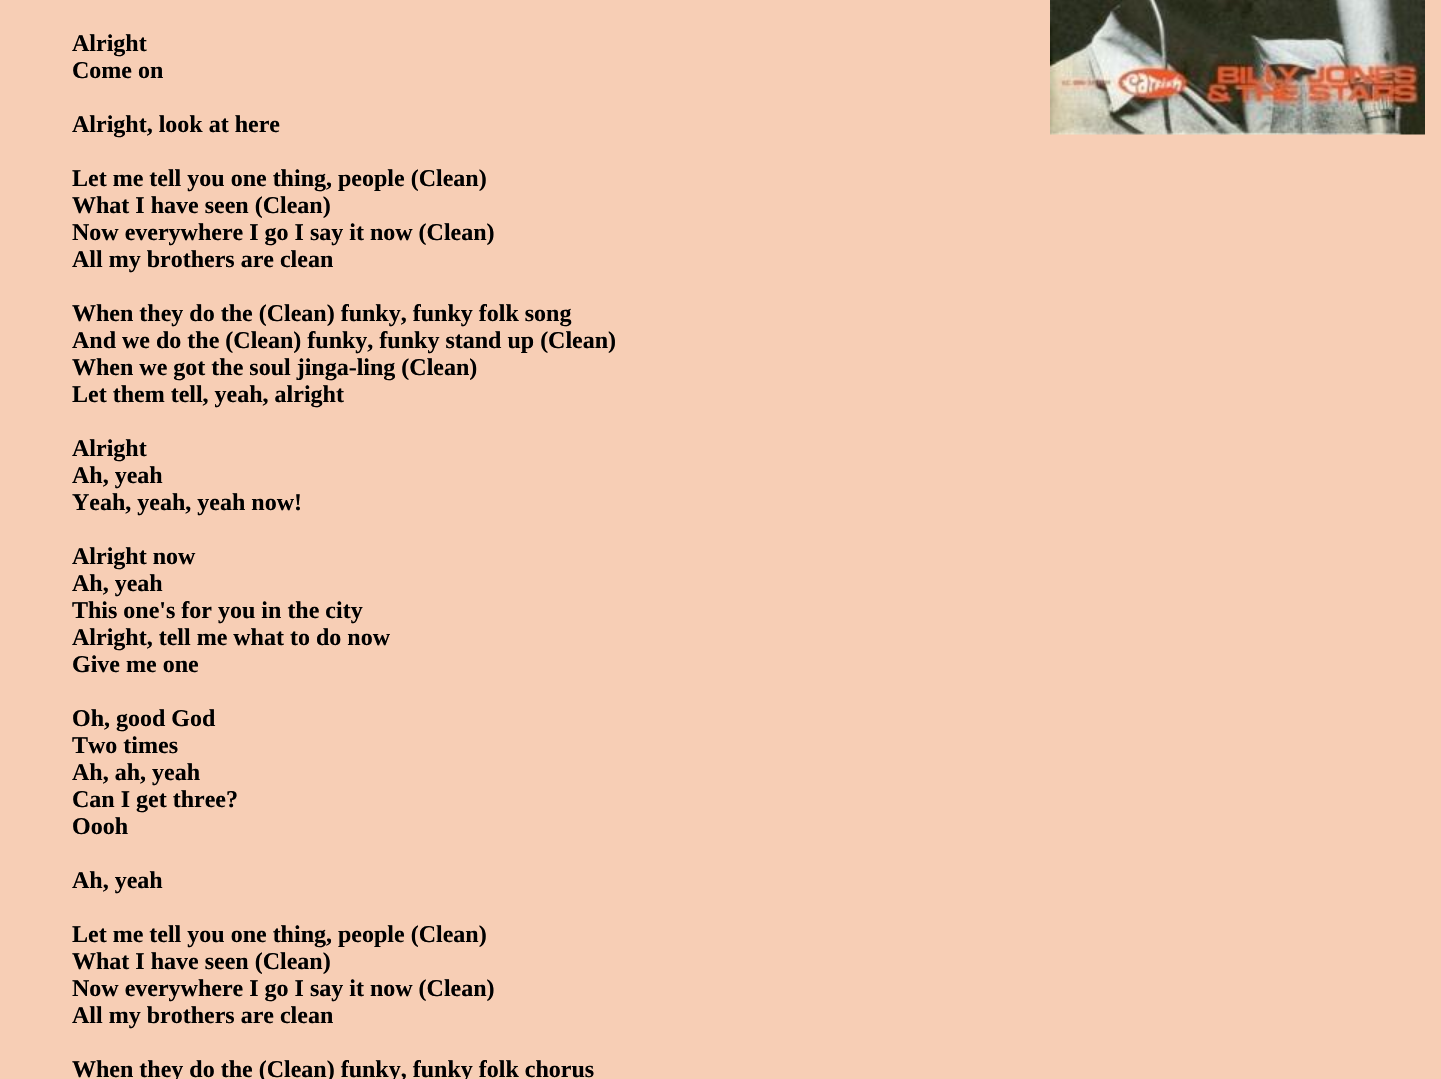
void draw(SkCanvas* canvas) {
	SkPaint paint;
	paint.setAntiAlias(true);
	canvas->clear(0xfff7ceb5);
	SkFont f1(fontMgr->matchFamilyStyle("Liberation Serif", SkFontStyle::Bold()), 24);
	f1.setSubpixel(true);
	paint.setColor(0xff000000);
	canvas->drawString("Alright", 72, 51, f1, paint);
	canvas->drawString("Come on", 72, 78, f1, paint);
	canvas->drawString("Alright, look at here", 72, 132, f1, paint);
	canvas->drawString("Let me tell you one thing, people (Clean)", 72, 186, f1, paint);
	canvas->drawString("What I have seen (Clean)", 72, 213, f1, paint);
	canvas->drawString("Now everywhere I go I say it now (Clean)", 72, 240, f1, paint);
	canvas->drawString("All my brothers are clean", 72, 267, f1, paint);
	canvas->drawString("When they do the (Clean) funky, funky folk song", 72, 321, f1, paint);
	canvas->drawString("And we do the (Clean) funky, funky stand up (Clean)", 72, 348, f1, paint);
	canvas->drawString("When we got the soul jinga-ling (Clean)", 72, 375, f1, paint);
	canvas->drawString("Let them tell, yeah, alright", 72, 402, f1, paint);
	canvas->drawString("Alright", 72, 456, f1, paint);
	canvas->drawString("Ah, yeah", 72, 483, f1, paint);
	canvas->drawString("Yeah, yeah, yeah now!", 72, 510, f1, paint);
	canvas->drawString("Alright now", 72, 564, f1, paint);
	canvas->drawString("Ah, yeah", 72, 591, f1, paint);
	canvas->drawString("This one's for you in the city", 72, 618, f1, paint);
	canvas->drawString("Alright, tell me what to do now", 72, 645, f1, paint);
	canvas->drawString("Give me one", 72, 672, f1, paint);
	canvas->drawString("Oh, good God", 72, 726, f1, paint);
	canvas->drawString("Two times", 72, 753, f1, paint);
	canvas->drawString("Ah, ah, yeah", 72, 780, f1, paint);
	canvas->drawString("Can I get three?", 72, 807, f1, paint);
	canvas->drawString("Oooh", 72, 834, f1, paint);
	canvas->drawString("Ah, yeah", 72, 888, f1, paint);
	canvas->drawString("Let me tell you one thing, people (Clean)", 72, 942, f1, paint);
	canvas->drawString("What I have seen (Clean)", 72, 969, f1, paint);
	canvas->drawString("Now everywhere I go I say it now (Clean)", 72, 996, f1, paint);
	canvas->drawString("All my brothers are clean", 72, 1023, f1, paint);
	canvas->drawString("When they do the (Clean) funky, funky folk chorus", 72, 1077, f1, paint);
	canvas->drawImageRect(SkImages::DeferredFromEncodedData(SkData::MakeFromFileName("img1.png")), SkRect::MakeXYWH(1050, 0, 375, 135), SkSamplingOptions());
}
